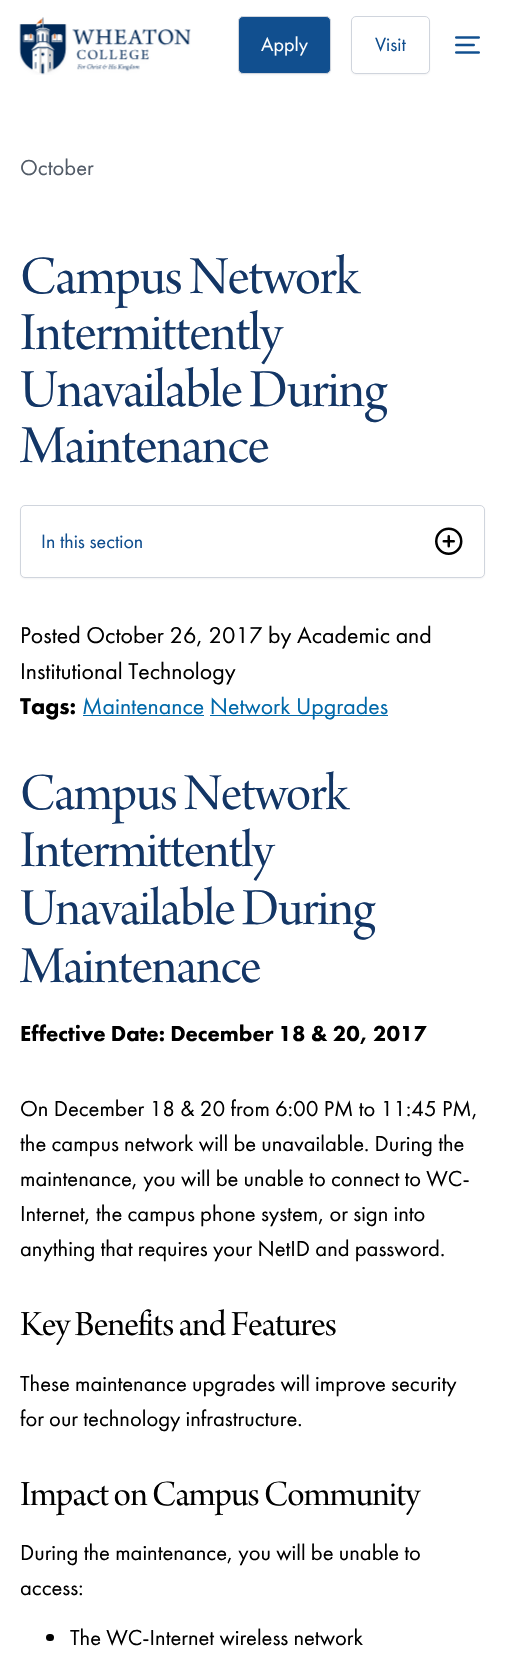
void draw(SkCanvas* canvas) {
	SkPaint paint;
	paint.setAntiAlias(true);
	auto spacedText = [&](const char* s, float x, float y, const SkFont& font, const SkPaint& ink, float letter, float word) {
		std::vector<SkGlyphID> glyphs(font.countText(s, strlen(s), SkTextEncoding::kUTF8));
		std::vector<float> xs(glyphs.size());
		font.textToGlyphs(s, strlen(s), SkTextEncoding::kUTF8, glyphs);
		font.getXPos(glyphs, xs, x);
		float extra = 0;
		for (size_t i = 0; i < glyphs.size(); i++) {
			xs[i] += extra;
			extra += letter + word * (glyphs[i] == font.unicharToGlyph(' '));
		}
		canvas->drawTextBlob(SkTextBlob::MakeFromPosHGlyphs(glyphs, xs, y, font), 0, 0, ink);
	};
	canvas->clear(0xffffffff);
	canvas->drawImageRect(SkImages::DeferredFromEncodedData(SkData::MakeFromFileName("img1.png")), SkRect::MakeXYWH(19, 17, 172, 58), SkSamplingOptions());
	paint.setColor(0x0d101828);
	paint.setMaskFilter(SkMaskFilter::MakeBlur(kNormal_SkBlurStyle, 1));
	canvas->drawRoundRect(SkRect::MakeXYWH(238, 18, 93, 57), 5, 5, paint);
	paint.setMaskFilter(nullptr);
	paint.setColor(0xff114f8f);
	canvas->drawRoundRect(SkRect::MakeXYWH(238.5, 16.5, 92, 57), 4.5, 4.5, paint);
	paint.setStroke(true);
	paint.setStrokeWidth(1);
	paint.setColor(0xffd0d5dd);
	canvas->drawRoundRect(SkRect::MakeXYWH(238.5, 16.5, 92, 57), 4.5, 4.5, paint);
	SkFont f1(fontMgr->matchFamilyStyle("Futura PT", SkFontStyle::Normal()), 20);
	f1.setSubpixel(true);
	paint.setStroke(false);
	paint.setColor(0xffffffff);
	canvas->drawString("Apply", 261, 51, f1, paint);
	paint.setColor(0x0d101828);
	paint.setMaskFilter(SkMaskFilter::MakeBlur(kNormal_SkBlurStyle, 1));
	canvas->drawRoundRect(SkRect::MakeXYWH(351, 18, 79, 57), 5, 5, paint);
	paint.setMaskFilter(nullptr);
	paint.setColor(0xffffffff);
	canvas->drawRoundRect(SkRect::MakeXYWH(351.5, 16.5, 78, 57), 4.5, 4.5, paint);
	paint.setStroke(true);
	paint.setColor(0xffd0d5dd);
	canvas->drawRoundRect(SkRect::MakeXYWH(351.5, 16.5, 78, 57), 4.5, 4.5, paint);
	paint.setStroke(false);
	paint.setColor(0xff114f8f);
	canvas->drawString("Visit", 375, 51, f1, paint);
	canvas->drawImageRect(SkImages::DeferredFromEncodedData(SkData::MakeFromFileName("img2.png")), SkRect::MakeXYWH(455, 36, 25, 18), SkSamplingOptions());
	SkFont f2(fontMgr->matchFamilyStyle("Futura PT", SkFontStyle::Normal()), 22.5);
	f2.setSubpixel(true);
	paint.setColor(0xff525b67);
	canvas->drawString("October", 20, 175, f2, paint);
	SkFont f3(fontMgr->matchFamilyStyle("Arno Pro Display", SkFontStyle::Normal()), 56.75);
	f3.setSubpixel(true);
	paint.setColor(0xff133666);
	spacedText("Campus Network", 20, 293, f3, paint, -1.1, 0);
	spacedText("Intermittently", 20, 349, f3, paint, -1.1, 0);
	spacedText("Unavailable During", 20, 406, f3, paint, -1.1, 0);
	spacedText("Maintenance", 20, 462, f3, paint, -1.1, 0);
	paint.setColor(0x0d101828);
	paint.setMaskFilter(SkMaskFilter::MakeBlur(kNormal_SkBlurStyle, 1));
	canvas->drawRoundRect(SkRect::MakeXYWH(20, 506, 465, 73), 5, 5, paint);
	paint.setMaskFilter(nullptr);
	paint.setColor(0xffffffff);
	canvas->drawRoundRect(SkRect::MakeXYWH(20.5, 505.5, 464, 72), 4.5, 4.5, paint);
	paint.setStroke(true);
	paint.setColor(0xffd0d5dd);
	canvas->drawRoundRect(SkRect::MakeXYWH(20.5, 505.5, 464, 72), 4.5, 4.5, paint);
	paint.setStroke(false);
	paint.setColor(0xff114f8f);
	canvas->drawString("In this section", 41, 548, f1, paint);
	canvas->drawImageRect(SkImages::DeferredFromEncodedData(SkData::MakeFromFileName("img3.png")), SkRect::MakeXYWH(435, 527, 28, 28), SkSamplingOptions());
	SkFont f4(fontMgr->matchFamilyStyle("Futura PT", SkFontStyle::Normal()), 23.75);
	f4.setSubpixel(true);
	paint.setColor(0xff000000);
	canvas->drawString("Posted October 26, 2017 by Academic and", 20, 643, f4, paint);
	canvas->drawString("Institutional Technology", 20, 679, f4, paint);
	SkFont f5(fontMgr->matchFamilyStyle("Futura PT", SkFontStyle(900, SkFontStyle::kNormal_Width, SkFontStyle::kUpright_Slant)), 23.75);
	f5.setSubpixel(true);
	canvas->drawString("Tags:", 20, 714, f5, paint);
	paint.setColor(0xff0069aa);
	canvas->drawString("Maintenance Network", 82, 714, f4, paint);
	canvas->drawRect(SkRect::MakeXYWH(83, 715, 121, 1), paint);
	canvas->drawRect(SkRect::MakeXYWH(210, 715, 178, 1), paint);
	canvas->drawString("Upgrades", 296, 714, f4, paint);
	SkFont f6(fontMgr->matchFamilyStyle("Arno Pro Display", SkFontStyle::Normal()), 55);
	f6.setSubpixel(true);
	paint.setColor(0xff133666);
	spacedText("Campus Network", 20, 809, f6, paint, -1.1, 0);
	spacedText("Intermittently", 20, 866, f6, paint, -1.1, 0);
	spacedText("Unavailable During", 20, 924, f6, paint, -1.1, 0);
	spacedText("Maintenance", 20, 982, f6, paint, -1.1, 0);
	SkFont f7(fontMgr->matchFamilyStyle("Futura PT", SkFontStyle(900, SkFontStyle::kNormal_Width, SkFontStyle::kUpright_Slant)), 22.5);
	f7.setSubpixel(true);
	paint.setColor(0xff000000);
	canvas->drawString("Effective Date: December 18 & 20, 2017", 20, 1041, f7, paint);
	canvas->drawString("On December 18 & 20 from 6:00 PM to 11:45 PM,", 20, 1116, f2, paint);
	canvas->drawString("the campus network will be unavailable. During the", 20, 1151, f2, paint);
	canvas->drawString("maintenance, you will be unable to connect to WC-", 20, 1186, f2, paint);
	canvas->drawString("Internet, the campus phone system, or sign into", 20, 1221, f2, paint);
	canvas->drawString("anything that requires your NetID and password.", 20, 1256, f2, paint);
	SkFont f8(fontMgr->matchFamilyStyle("Arno Pro Display", SkFontStyle::Normal()), 37.5);
	f8.setSubpixel(true);
	spacedText("Key Benefits and Features", 20, 1335, f8, paint, -0.75, 0);
	canvas->drawString("These maintenance upgrades will improve security", 20, 1391, f2, paint);
	canvas->drawString("for our technology infrastructure.", 20, 1426, f2, paint);
	spacedText("Impact on Campus Community", 20, 1505, f8, paint, -0.75, 0);
	canvas->drawString("During the maintenance, you will be unable to", 20, 1560, f2, paint);
	canvas->drawString("access:", 20, 1595, f2, paint);
	canvas->drawRoundRect(SkRect::MakeXYWH(46, 1634, 8, 7), 3.5, 3.5, paint);
	canvas->drawString("The WC-Internet wireless network", 70, 1645, f2, paint);
}
